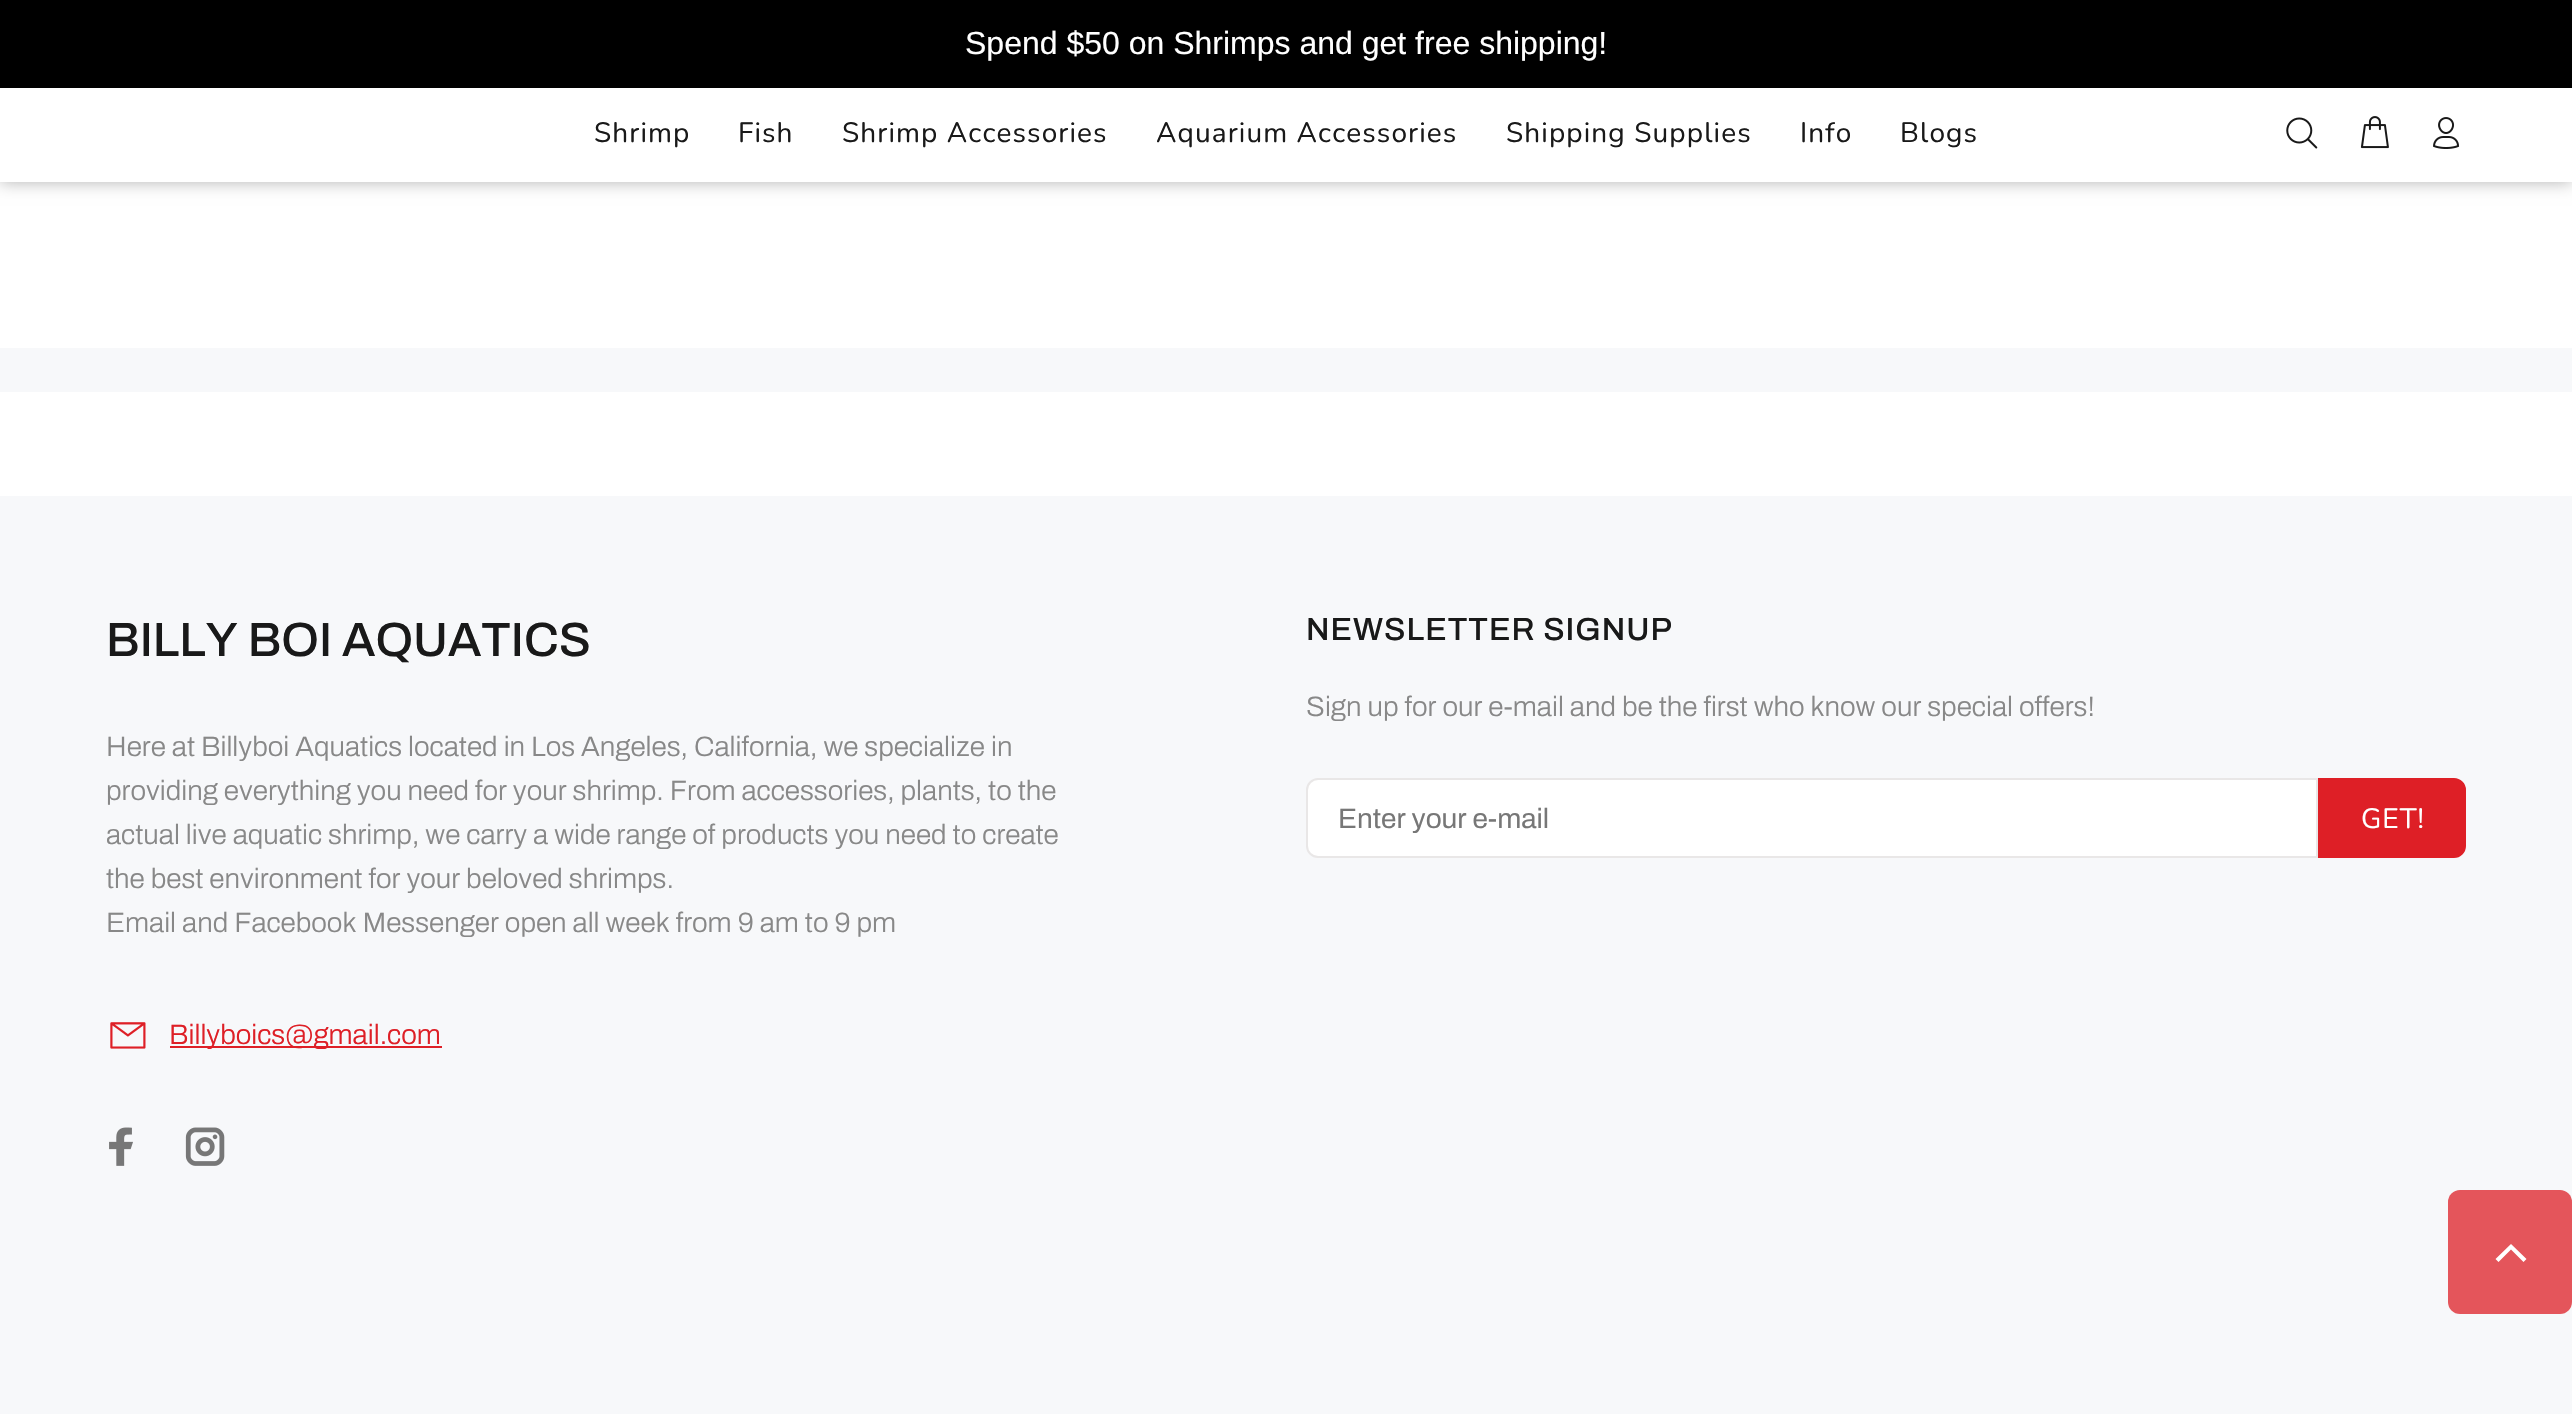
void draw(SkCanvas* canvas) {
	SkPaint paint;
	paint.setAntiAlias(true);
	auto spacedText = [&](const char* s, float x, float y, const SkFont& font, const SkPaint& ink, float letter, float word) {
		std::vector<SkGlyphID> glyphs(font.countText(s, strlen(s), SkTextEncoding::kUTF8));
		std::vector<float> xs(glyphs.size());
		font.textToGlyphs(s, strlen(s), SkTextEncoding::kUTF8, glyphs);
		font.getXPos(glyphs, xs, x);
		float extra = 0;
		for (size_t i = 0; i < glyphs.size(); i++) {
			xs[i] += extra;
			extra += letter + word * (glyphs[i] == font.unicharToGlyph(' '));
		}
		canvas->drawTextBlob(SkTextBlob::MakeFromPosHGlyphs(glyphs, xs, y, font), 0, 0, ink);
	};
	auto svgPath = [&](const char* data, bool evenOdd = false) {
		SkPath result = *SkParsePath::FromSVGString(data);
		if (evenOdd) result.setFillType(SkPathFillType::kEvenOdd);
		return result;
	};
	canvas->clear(0xffffffff);
	paint.setColor(0x4d000000);
	paint.setMaskFilter(SkMaskFilter::MakeBlur(kNormal_SkBlurStyle, 8));
	canvas->drawRect(SkRect::MakeXYWH(0, 86, 2572, 96), paint);
	paint.setMaskFilter(nullptr);
	paint.setColor(0xff000000);
	canvas->drawRect(SkRect::MakeXYWH(0, 0, 2572, 88), paint);
	SkFont f1(fontMgr->matchFamilyStyle("Liberation Sans", SkFontStyle::Normal()), 32);
	f1.setSubpixel(true);
	paint.setColor(0xffffffff);
	canvas->drawString("Spend $50 on Shrimps and get free shipping!", 965, 54, f1, paint);
	canvas->drawRect(SkRect::MakeXYWH(0, 88, 2572, 94), paint);
	SkFont f2(fontMgr->matchFamilyStyle("Nunito", SkFontStyle::Normal()), 28);
	f2.setSubpixel(true);
	paint.setColor(0xff191919);
	spacedText("Shrimp", 594, 142, f2, paint, 1.1, 0);
	spacedText("Fish", 738, 142, f2, paint, 1.1, 0);
	spacedText("Shrimp Accessories", 842, 142, f2, paint, 1.1, 0);
	spacedText("Aquarium Accessories", 1156, 142, f2, paint, 1.1, 0);
	spacedText("Shipping Supplies", 1506, 142, f2, paint, 1.1, 0);
	spacedText("Info", 1800, 142, f2, paint, 1.1, 0);
	spacedText("Blogs", 1900, 142, f2, paint, 1.1, 0);
	canvas->drawImageRect(SkImages::DeferredFromEncodedData(SkData::MakeFromFileName("img1.png")), SkRect::MakeXYWH(2286, 117, 32, 32), SkSamplingOptions());
	canvas->drawImageRect(SkImages::DeferredFromEncodedData(SkData::MakeFromFileName("img2.png")), SkRect::MakeXYWH(2360, 116, 29, 33), SkSamplingOptions());
	canvas->drawImageRect(SkImages::DeferredFromEncodedData(SkData::MakeFromFileName("img3.png")), SkRect::MakeXYWH(2433, 117, 27, 32), SkSamplingOptions());
	paint.setColor(0xfff7f8fa);
	canvas->drawRect(SkRect::MakeXYWH(0, 348, 2572, 44), paint);
	canvas->drawRect(SkRect::MakeXYWH(0, 496, 2572, 918), paint);
	SkFont f3(fontMgr->matchFamilyStyle("Archivo", SkFontStyle(500, SkFontStyle::kNormal_Width, SkFontStyle::kUpright_Slant)), 48);
	f3.setSubpixel(true);
	paint.setColor(0xff191919);
	canvas->drawString("BILLY BOI AQUATICS", 106, 656, f3, paint);
	SkFont f4(fontMgr->matchFamilyStyle("Archivo", SkFontStyle(300, SkFontStyle::kNormal_Width, SkFontStyle::kUpright_Slant)), 28);
	f4.setSubpixel(true);
	paint.setColor(0xff888888);
	canvas->drawString("Here at Billyboi Aquatics located in Los Angeles, California, we specialize in", 106, 756, f4, paint);
	canvas->drawString("providing everything you need for your shrimp. From accessories, plants, to the", 106, 800, f4, paint);
	canvas->drawString("actual live aquatic shrimp, we carry a wide range of products you need to create", 106, 844, f4, paint);
	canvas->drawString("the best environment for your beloved shrimps.", 106, 888, f4, paint);
	canvas->drawString("Email and Facebook Messenger open all week from 9 am to 9 pm", 106, 932, f4, paint);
	canvas->drawImageRect(SkImages::DeferredFromEncodedData(SkData::MakeFromFileName("img4.png")), SkRect::MakeXYWH(110, 1022, 36, 27), SkSamplingOptions());
	paint.setColor(0xffde1f26);
	canvas->drawRect(SkRect::MakeXYWH(170, 1046, 272, 2), paint);
	canvas->drawString("Billyboics@gmail.com", 169, 1044, f4, paint);
	canvas->drawImageRect(SkImages::DeferredFromEncodedData(SkData::MakeFromFileName("img5.png")), SkRect::MakeXYWH(109, 1127, 24, 39), SkSamplingOptions());
	canvas->drawImageRect(SkImages::DeferredFromEncodedData(SkData::MakeFromFileName("img6.png")), SkRect::MakeXYWH(185, 1127, 40, 39), SkSamplingOptions());
	SkFont f5(fontMgr->matchFamilyStyle("Archivo", SkFontStyle(500, SkFontStyle::kNormal_Width, SkFontStyle::kUpright_Slant)), 32);
	f5.setSubpixel(true);
	paint.setColor(0xff191919);
	spacedText("NEWSLETTER SIGNUP", 1306, 640, f5, paint, 1, 0);
	paint.setColor(0xff888888);
	canvas->drawString("Sign up for our e-mail and be the first who know our special offers!", 1306, 716, f4, paint);
	paint.setColor(0xffffffff);
	canvas->drawPath(svgPath("M1318 779H2317V857H1318C1312 857 1307 852 1307 846V790C1307 784 1312 779 1318 779Z"), paint);
	paint.setStroke(true);
	paint.setStrokeWidth(2);
	paint.setColor(0xffe9e7e7);
	canvas->drawPath(svgPath("M1318 779H2317V857H1318C1312 857 1307 852 1307 846V790C1307 784 1312 779 1318 779Z"), paint);
	SkFont f6(fontMgr->matchFamilyStyle("Archivo", SkFontStyle::Normal()), 28);
	f6.setSubpixel(true);
	paint.setStroke(false);
	paint.setColor(0xff777777);
	canvas->drawString("Enter your e-mail", 1338, 828, f6, paint);
	paint.setColor(0xffde1f26);
	canvas->drawPath(svgPath("M2319 779H2454C2460 779 2465 784 2465 790V846C2465 852 2460 857 2454 857H2319Z"), paint);
	paint.setStroke(true);
	canvas->drawPath(svgPath("M2319 779H2454C2460 779 2465 784 2465 790V846C2465 852 2460 857 2454 857H2319Z"), paint);
	paint.setStroke(false);
	paint.setColor(0xffffffff);
	spacedText("GET!", 2361, 828, f2, paint, 1, 0);
	paint.setColor(0xffe4555b);
	canvas->drawRoundRect(SkRect::MakeXYWH(2448, 1190, 124, 124), 12, 12, paint);
	paint.setColor(0xffffffff);
	canvas->drawPath(svgPath("M2523.5 1262L2511 1249.5L2498.5 1262L2495.5 1259L2511 1244L2526.5 1259Z"), paint);
}
